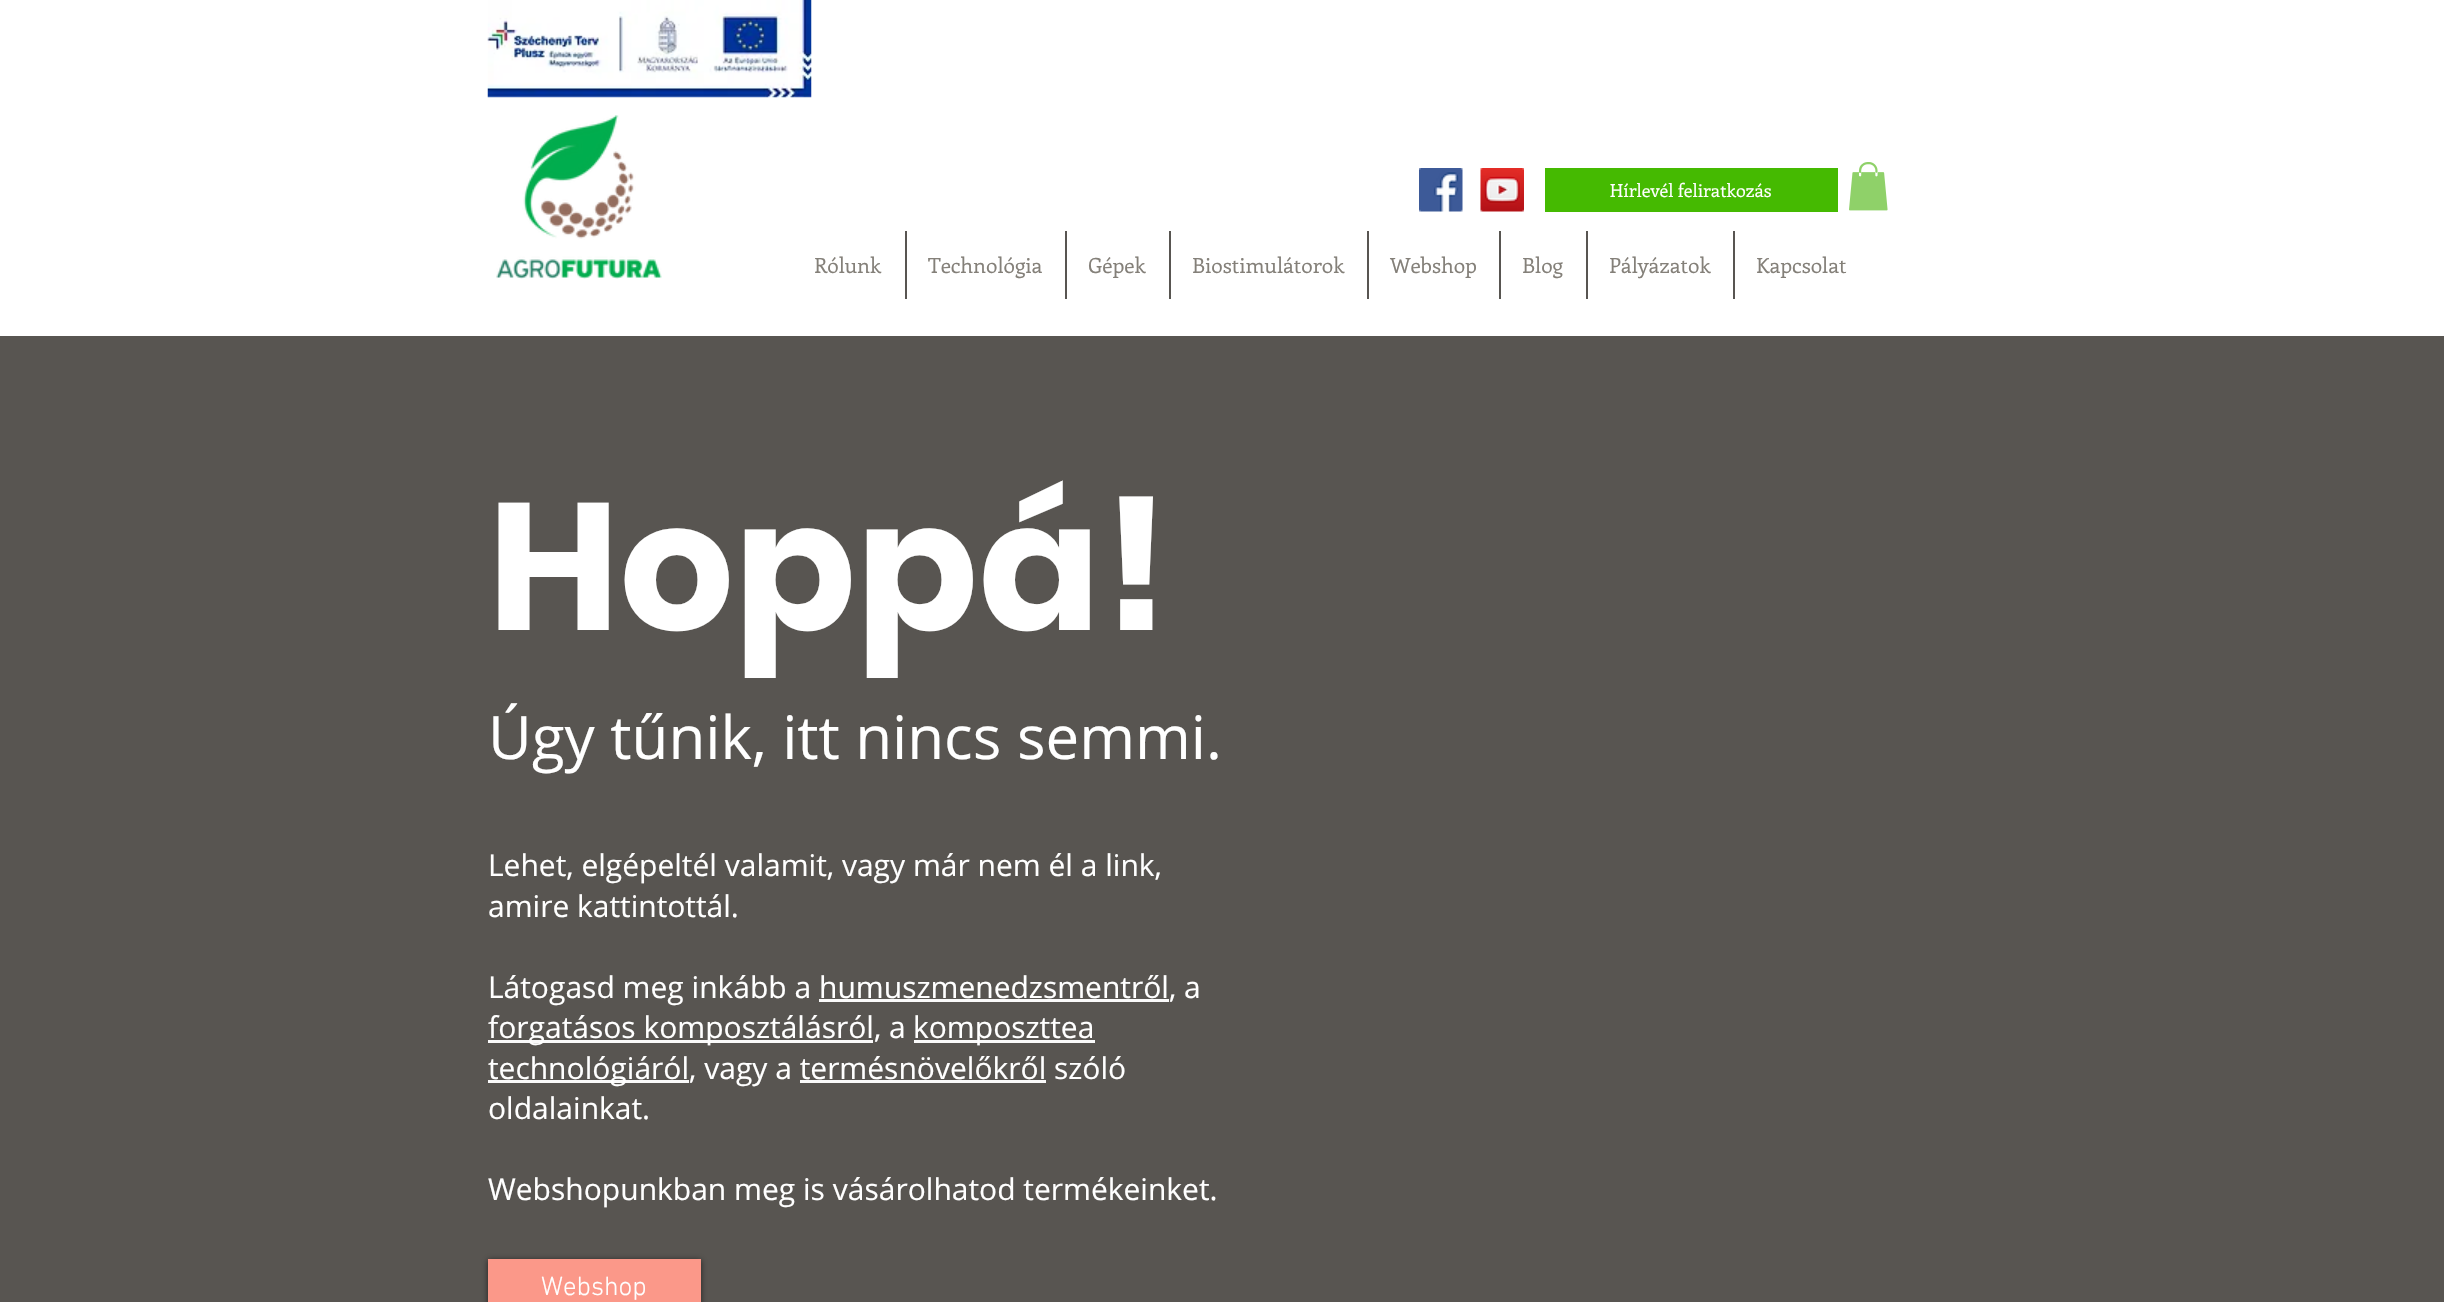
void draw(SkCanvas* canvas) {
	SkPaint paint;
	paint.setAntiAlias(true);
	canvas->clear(0xffffffff);
	canvas->drawImageRect(SkImages::DeferredFromEncodedData(SkData::MakeFromFileName("img1.png")), SkRect::MakeXYWH(487, 0, 325, 98), SkSamplingOptions());
	canvas->drawImageRect(SkImages::DeferredFromEncodedData(SkData::MakeFromFileName("img2.png")), SkRect::MakeXYWH(496, 115, 166, 164), SkSamplingOptions());
	canvas->drawImageRect(SkImages::DeferredFromEncodedData(SkData::MakeFromFileName("img3.png")), SkRect::MakeXYWH(1419, 168, 44, 44), SkSamplingOptions());
	canvas->drawImageRect(SkImages::DeferredFromEncodedData(SkData::MakeFromFileName("img4.png")), SkRect::MakeXYWH(1480, 168, 44, 44), SkSamplingOptions());
	paint.setColor(0xff45ba01);
	canvas->drawRect(SkRect::MakeXYWH(1545, 168, 293, 44), paint);
	SkFont f1(fontMgr->matchFamilyStyle("Enriqueta", SkFontStyle::Normal()), 18);
	f1.setSubpixel(true);
	paint.setColor(0xffffffff);
	canvas->drawString("Hírlevél feliratkozás", 1610, 197, f1, paint);
	canvas->drawImageRect(SkImages::DeferredFromEncodedData(SkData::MakeFromFileName("img5.png")), SkRect::MakeXYWH(1849, 162, 39, 49), SkSamplingOptions());
	SkFont f2(fontMgr->matchFamilyStyle("Enriqueta", SkFontStyle::Normal()), 21);
	f2.setSubpixel(true);
	paint.setColor(0xff848079);
	canvas->drawString("Rólunk", 814, 273, f2, paint);
	paint.setColor(0xff585551);
	canvas->drawRect(SkRect::MakeXYWH(905, 231, 2, 68), paint);
	paint.setColor(0xff848079);
	canvas->drawString("Technológia", 928, 273, f2, paint);
	paint.setColor(0xff585551);
	canvas->drawRect(SkRect::MakeXYWH(1065, 231, 2, 68), paint);
	paint.setColor(0xff848079);
	canvas->drawString("Gépek", 1088, 273, f2, paint);
	paint.setColor(0xff585551);
	canvas->drawRect(SkRect::MakeXYWH(1169, 231, 2, 68), paint);
	paint.setColor(0xff848079);
	canvas->drawString("Biostimulátorok", 1192, 273, f2, paint);
	paint.setColor(0xff585551);
	canvas->drawRect(SkRect::MakeXYWH(1367, 231, 2, 68), paint);
	paint.setColor(0xff848079);
	canvas->drawString("Webshop", 1390, 273, f2, paint);
	paint.setColor(0xff585551);
	canvas->drawRect(SkRect::MakeXYWH(1499, 231, 2, 68), paint);
	paint.setColor(0xff848079);
	canvas->drawString("Blog", 1522, 273, f2, paint);
	paint.setColor(0xff585551);
	canvas->drawRect(SkRect::MakeXYWH(1586, 231, 2, 68), paint);
	paint.setColor(0xff848079);
	canvas->drawString("Pályázatok", 1609, 273, f2, paint);
	paint.setColor(0xff585551);
	canvas->drawRect(SkRect::MakeXYWH(1733, 231, 2, 68), paint);
	paint.setColor(0xff848079);
	canvas->drawString("Kapcsolat", 1756, 273, f2, paint);
	paint.setColor(0xff585551);
	canvas->drawRect(SkRect::MakeXYWH(0, 336, 2444, 966), paint);
	SkFont f3(fontMgr->matchFamilyStyle("Poppins", SkFontStyle::Bold()), 180);
	f3.setSubpixel(true);
	paint.setColor(0xffffffff);
	canvas->drawString("Hoppá!", 488, 630, f3, paint);
	SkFont f4(fontMgr->matchFamilyStyle("Open Sans", SkFontStyle::Normal()), 60);
	f4.setSubpixel(true);
	canvas->drawString("Úgy tűnik, itt nincs semmi.", 488, 759, f4, paint);
	SkFont f5(fontMgr->matchFamilyStyle("Open Sans", SkFontStyle::Normal()), 30);
	f5.setSubpixel(true);
	canvas->drawString("Lehet, elgépeltél valamit, vagy már nem él a link,", 488, 876, f5, paint);
	canvas->drawString("amire kattintottál.", 488, 917, f5, paint);
	canvas->drawString("Látogasd meg inkább a humuszmenedzsmentről, a", 488, 998, f5, paint);
	paint.setColor(0xfffafafa);
	canvas->drawRect(SkRect::MakeXYWH(819, 999, 350, 3), paint);
	canvas->drawRect(SkRect::MakeXYWH(488, 1040, 385, 3), paint);
	paint.setColor(0xffffffff);
	canvas->drawString("forgatásos komposztálásról, a", 488, 1038, f5, paint);
	paint.setColor(0xfffafafa);
	canvas->drawRect(SkRect::MakeXYWH(914, 1040, 181, 3), paint);
	paint.setColor(0xffffffff);
	canvas->drawString("komposzttea", 913, 1038, f5, paint);
	paint.setColor(0xfffafafa);
	canvas->drawRect(SkRect::MakeXYWH(488, 1080, 201, 3), paint);
	paint.setColor(0xffffffff);
	canvas->drawString("technológiáról, vagy a termésnövelőkről szóló", 488, 1079, f5, paint);
	paint.setColor(0xfffafafa);
	canvas->drawRect(SkRect::MakeXYWH(800, 1080, 246, 3), paint);
	paint.setColor(0xffffffff);
	canvas->drawString("oldalainkat.", 488, 1119, f5, paint);
	canvas->drawString("Webshopunkban meg is vásárolhatod termékeinket.", 488, 1200, f5, paint);
	paint.setColor(0x99000000);
	paint.setMaskFilter(SkMaskFilter::MakeBlur(kNormal_SkBlurStyle, 3));
	canvas->drawRect(SkRect::MakeXYWH(488, 1260, 213, 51), paint);
	paint.setMaskFilter(nullptr);
	paint.setColor(0xfffb9889);
	canvas->drawRect(SkRect::MakeXYWH(488, 1259, 213, 43), paint);
	SkFont f6(fontMgr->matchFamilyStyle("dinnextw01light", SkFontStyle(300, SkFontStyle::kNormal_Width, SkFontStyle::kUpright_Slant)), 27);
	f6.setSubpixel(true);
	paint.setColor(0xffffffff);
	canvas->drawString("Webshop", 541, 1295, f6, paint);
}
